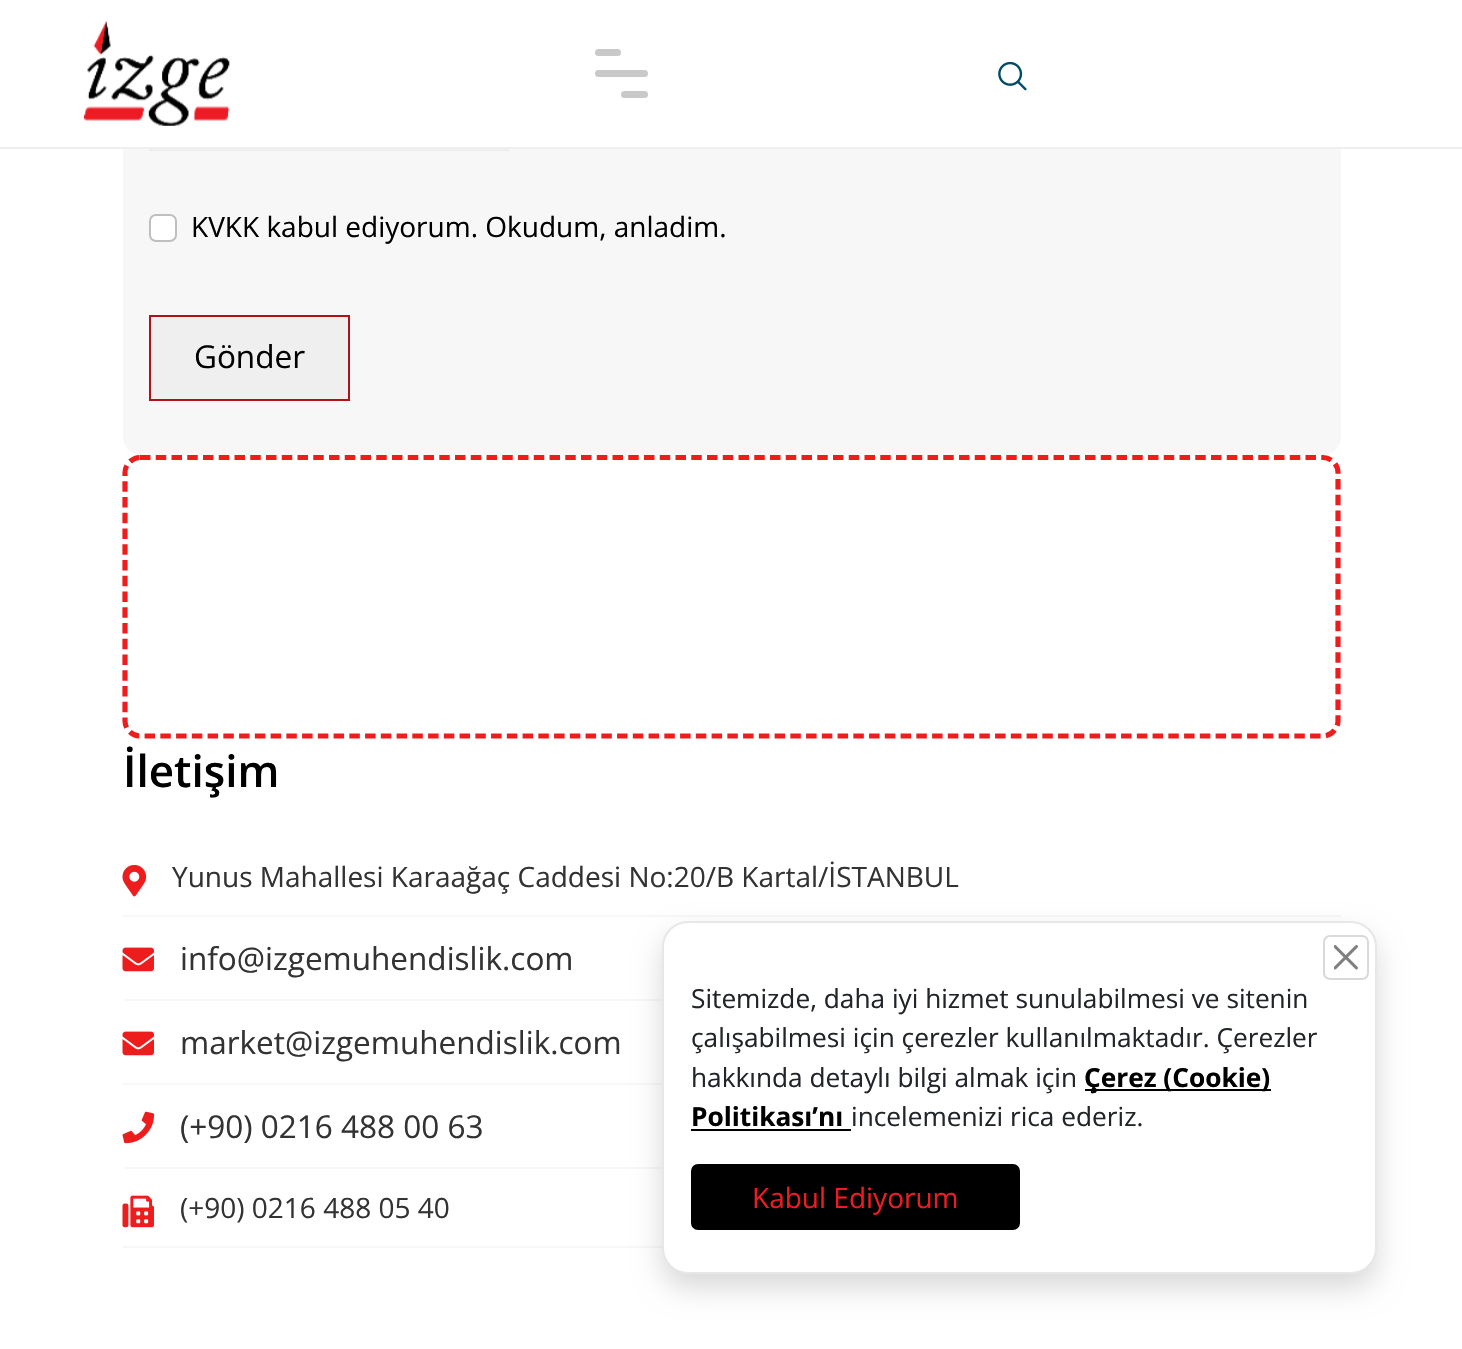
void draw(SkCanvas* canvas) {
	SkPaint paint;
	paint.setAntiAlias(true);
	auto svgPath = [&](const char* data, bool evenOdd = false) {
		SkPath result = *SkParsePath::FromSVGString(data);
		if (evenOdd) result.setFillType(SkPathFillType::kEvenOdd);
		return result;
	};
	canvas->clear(0xffffffff);
	paint.setStroke(true);
	paint.setStrokeWidth(5.2);
	paint.setColor(0xffed1d1d);
	paint.setPathEffect(SkDashPathEffect::Make({{10.5f, 5.25f}}, 0));
	canvas->drawPath(svgPath("M140 457.5H1323C1331 457.5 1338 464.5 1338 472.5V721C1338 729 1331 736 1323 736H140C132 736 125 729 125 721V472.5C125 464.5 132 457.5 140 457.5Z"), paint);
	paint.setPathEffect(nullptr);
	paint.setStroke(false);
	paint.setColor(0xfff7f7f7);
	canvas->drawRoundRect(SkRect::MakeXYWH(123, -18, 1218, 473), 18, 18, paint);
	paint.setStroke(true);
	paint.setStrokeWidth(2);
	paint.setColor(0xffededed);
	canvas->drawRect(SkRect::MakeXYWH(150, 82, 358, 68), paint);
	paint.setStroke(false);
	paint.setColor(0xffffffff);
	canvas->drawRect(SkRect::MakeXYWH(123, 0, 1218, 147), paint);
	paint.setColor(0xffefefef);
	canvas->drawRect(SkRect::MakeXYWH(0, 147, 1462, 2), paint);
	canvas->drawImageRect(SkImages::DeferredFromEncodedData(SkData::MakeFromFileName("img1.png")), SkRect::MakeXYWH(84, 21, 146, 105), SkSamplingOptions());
	paint.setColor(0xffc9c9c9);
	canvas->drawRoundRect(SkRect::MakeXYWH(595, 49, 26, 7), 3.5, 3.5, paint);
	canvas->drawRoundRect(SkRect::MakeXYWH(595, 70, 53, 7), 3.5, 3.5, paint);
	canvas->drawRoundRect(SkRect::MakeXYWH(621, 91, 27, 7), 3.5, 3.5, paint);
	canvas->drawImageRect(SkImages::DeferredFromEncodedData(SkData::MakeFromFileName("img2.png")), SkRect::MakeXYWH(998, 61, 29, 30), SkSamplingOptions());
	paint.setColor(0xffffffff);
	canvas->drawRoundRect(SkRect::MakeXYWH(149, 214, 28, 28), 7, 7, paint);
	paint.setStroke(true);
	paint.setColor(0x40000000);
	canvas->drawRoundRect(SkRect::MakeXYWH(150, 215, 26, 26), 6, 6, paint);
	SkFont f1(fontMgr->matchFamilyStyle("Open Sans", SkFontStyle::Normal()), 28);
	f1.setSubpixel(true);
	paint.setStroke(false);
	paint.setColor(0xff000000);
	canvas->drawString("KVKK kabul ediyorum. Okudum, anladim.", 191, 237, f1, paint);
	paint.setColor(0xffefefef);
	canvas->drawRect(SkRect::MakeXYWH(150, 316, 199, 84), paint);
	paint.setStroke(true);
	paint.setColor(0xffaf1218);
	canvas->drawRect(SkRect::MakeXYWH(150, 316, 199, 84), paint);
	SkFont f2(fontMgr->matchFamilyStyle("Open Sans", SkFontStyle::Normal()), 31.5);
	f2.setSubpixel(true);
	paint.setStroke(false);
	paint.setColor(0xff000000);
	canvas->drawString("Gönder", 194, 368, f2, paint);
	SkFont f3(fontMgr->matchFamilyStyle("Open Sans", SkFontStyle(600, SkFontStyle::kNormal_Width, SkFontStyle::kUpright_Slant)), 44);
	f3.setSubpixel(true);
	canvas->drawString("İletişim", 123, 787, f3, paint);
	paint.setColor(0xfff7f7f7);
	canvas->drawRect(SkRect::MakeXYWH(123, 915, 1218, 2), paint);
	canvas->drawImageRect(SkImages::DeferredFromEncodedData(SkData::MakeFromFileName("img3.png")), SkRect::MakeXYWH(122, 864, 25, 33), SkSamplingOptions());
	paint.setColor(0xff333333);
	canvas->drawString("Yunus Mahallesi Karaağaç Caddesi No:20/B Kartal/İSTANBUL", 172, 887, f1, paint);
	paint.setColor(0xfff7f7f7);
	canvas->drawRect(SkRect::MakeXYWH(123, 999, 539, 2), paint);
	canvas->drawImageRect(SkImages::DeferredFromEncodedData(SkData::MakeFromFileName("img4.png")), SkRect::MakeXYWH(122, 947, 32, 25), SkSamplingOptions());
	paint.setColor(0xff333333);
	canvas->drawString("info@izgemuhendislik.com", 180, 970, f2, paint);
	paint.setColor(0xfff7f7f7);
	canvas->drawRect(SkRect::MakeXYWH(123, 1083, 539, 2), paint);
	canvas->drawImageRect(SkImages::DeferredFromEncodedData(SkData::MakeFromFileName("img4.png")), SkRect::MakeXYWH(122, 1031, 32, 25), SkSamplingOptions());
	paint.setColor(0xff333333);
	canvas->drawString("market@izgemuhendislik.com", 180, 1054, f2, paint);
	paint.setColor(0xfff7f7f7);
	canvas->drawRect(SkRect::MakeXYWH(123, 1167, 539, 2), paint);
	canvas->drawImageRect(SkImages::DeferredFromEncodedData(SkData::MakeFromFileName("img5.png")), SkRect::MakeXYWH(122, 1111, 33, 33), SkSamplingOptions());
	paint.setColor(0xff333333);
	canvas->drawString("(+90) 0216 488 00 63", 180, 1138, f2, paint);
	paint.setColor(0xfff7f7f7);
	canvas->drawRect(SkRect::MakeXYWH(123, 1246, 539, 2), paint);
	canvas->drawImageRect(SkImages::DeferredFromEncodedData(SkData::MakeFromFileName("img6.png")), SkRect::MakeXYWH(122, 1195, 32, 33), SkSamplingOptions());
	paint.setColor(0xff333333);
	canvas->drawString("(+90) 0216 488 05 40", 180, 1218, f1, paint);
	paint.setColor(0x26000000);
	paint.setMaskFilter(SkMaskFilter::MakeBlur(kNormal_SkBlurStyle, 14));
	canvas->drawRoundRect(SkRect::MakeXYWH(662, 935, 715, 353), 26, 26, paint);
	paint.setMaskFilter(nullptr);
	paint.setColor(0xffffffff);
	canvas->drawRoundRect(SkRect::MakeXYWH(663, 922, 713, 351), 25, 25, paint);
	paint.setStroke(true);
	paint.setColor(0xffe7e7e7);
	canvas->drawRoundRect(SkRect::MakeXYWH(663, 922, 713, 351), 25, 25, paint);
	canvas->drawImageRect(SkImages::DeferredFromEncodedData(SkData::MakeFromFileName("img7.png")), SkRect::MakeXYWH(1334, 945, 24, 25), SkSamplingOptions());
	paint.setColor(0xffd9d9d9);
	canvas->drawRoundRect(SkRect::MakeXYWH(1324, 936, 44, 43), 6, 6, paint);
	SkFont f4(fontMgr->matchFamilyStyle("Open Sans", SkFontStyle::Normal()), 26.25);
	f4.setSubpixel(true);
	paint.setStroke(false);
	paint.setColor(0xff212529);
	canvas->drawString("Sitemizde, daha iyi hizmet sunulabilmesi ve sitenin", 691, 1008, f4, paint);
	canvas->drawString("çalışabilmesi için çerezler kullanılmaktadır. Çerezler", 691, 1047, f4, paint);
	canvas->drawString("hakkında detaylı bilgi almak için", 691, 1087, f4, paint);
	paint.setColor(0xff000000);
	canvas->drawRect(SkRect::MakeXYWH(1085, 1089, 186, 2), paint);
	SkFont f5(fontMgr->matchFamilyStyle("Open Sans", SkFontStyle::Bold()), 26.25);
	f5.setSubpixel(true);
	canvas->drawString("Çerez (Cookie)", 1084, 1087, f5, paint);
	canvas->drawString("Politikası’nı", 691, 1126, f5, paint);
	canvas->drawRect(SkRect::MakeXYWH(691, 1129, 160, 2), paint);
	paint.setColor(0xff212529);
	canvas->drawString("incelemenizi rica ederiz.", 851, 1126, f4, paint);
	paint.setColor(0xff000000);
	canvas->drawRoundRect(SkRect::MakeXYWH(692, 1165, 327, 64), 6, 6, paint);
	paint.setStroke(true);
	canvas->drawRoundRect(SkRect::MakeXYWH(692, 1165, 327, 64), 6, 6, paint);
	paint.setStroke(false);
	paint.setColor(0xffed1c24);
	canvas->drawString("Kabul Ediyorum", 752, 1208, f1, paint);
}
